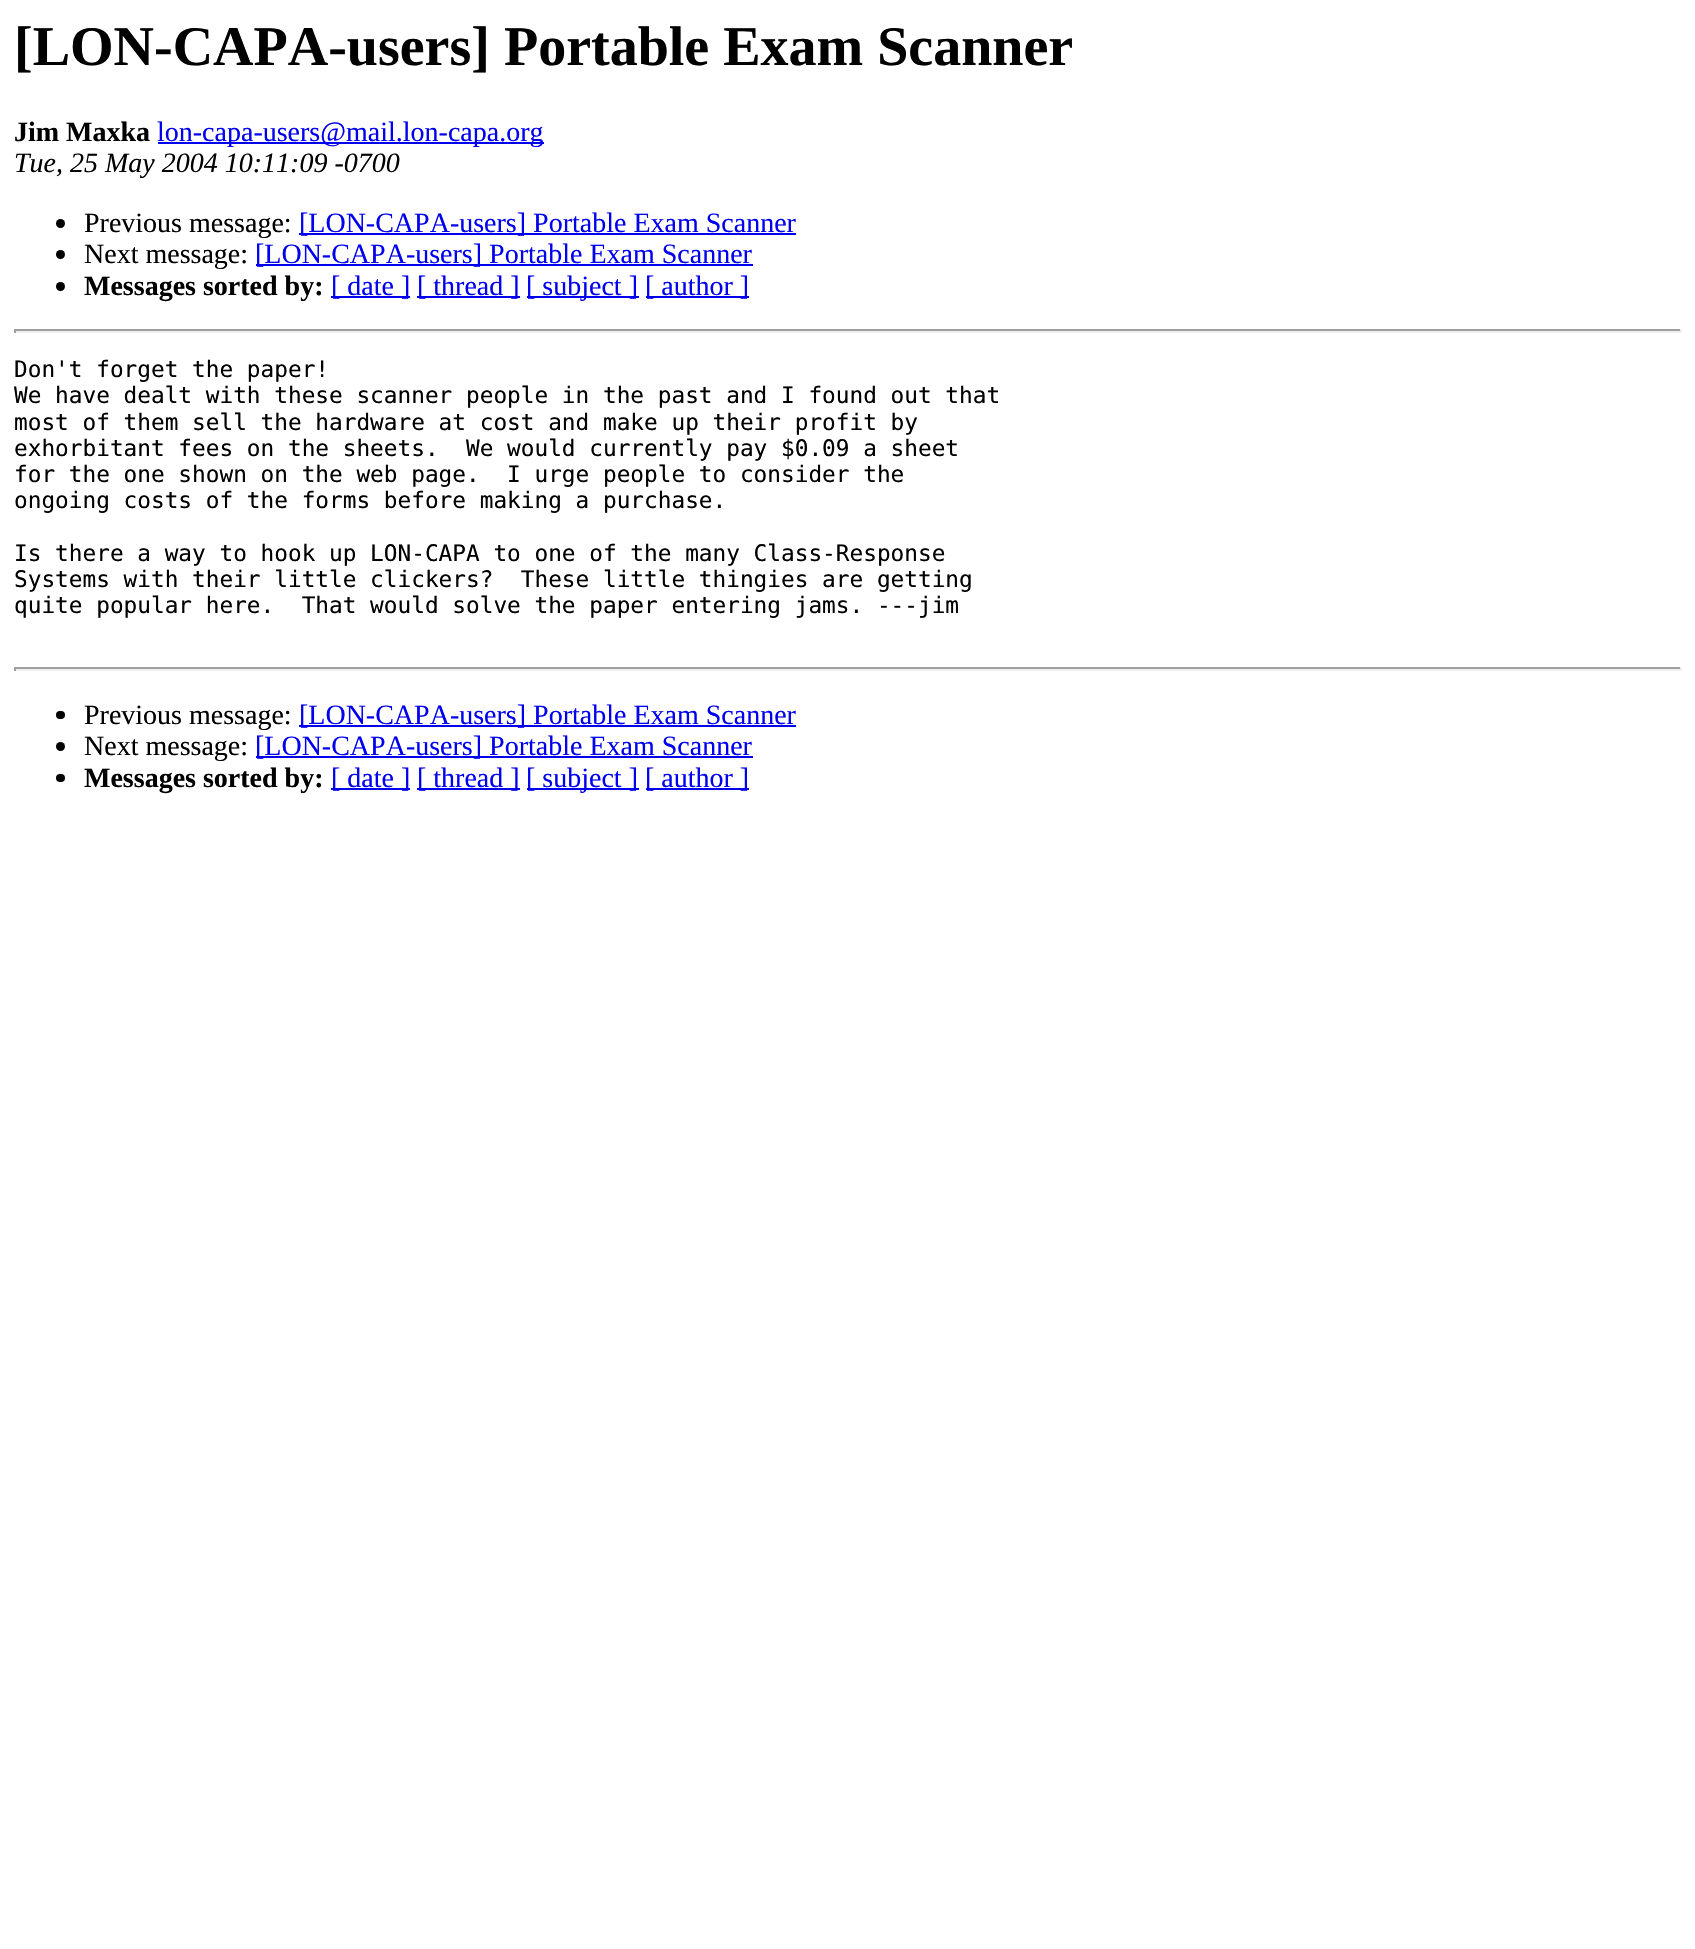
void draw(SkCanvas* canvas) {
	SkPaint paint;
	paint.setAntiAlias(true);
	canvas->clear(0xffffffff);
	SkFont f1(fontMgr->matchFamilyStyle("Liberation Serif", SkFontStyle::Bold()), 56);
	f1.setSubpixel(true);
	paint.setColor(0xff000000);
	canvas->drawString("[LON-CAPA-users] Portable Exam Scanner", 14, 65, f1, paint);
	SkFont f2(fontMgr->matchFamilyStyle("Liberation Serif", SkFontStyle::Bold()), 28);
	f2.setSubpixel(true);
	canvas->drawString("Jim Maxka", 14, 141, f2, paint);
	paint.setColor(0xff0000ee);
	canvas->drawRect(SkRect::MakeXYWH(158, 142, 386, 2), paint);
	SkFont f3(fontMgr->matchFamilyStyle("Liberation Serif", SkFontStyle::Normal()), 28);
	f3.setSubpixel(true);
	canvas->drawString("lon-capa-users@mail.lon-capa.org", 157, 141, f3, paint);
	SkFont f4(fontMgr->matchFamilyStyle("Liberation Serif", SkFontStyle::Italic()), 28);
	f4.setSubpixel(true);
	paint.setColor(0xff000000);
	canvas->drawString("Tue, 25 May 2004 10:11:09 -0700", 14, 172, f4, paint);
	canvas->drawCircle(60.5, 223.5, 4.5, paint);
	canvas->drawString("Previous message:", 84, 232, f3, paint);
	paint.setColor(0xff0000ee);
	canvas->drawRect(SkRect::MakeXYWH(299, 233, 497, 2), paint);
	canvas->drawString("[LON-CAPA-users] Portable Exam Scanner", 299, 232, f3, paint);
	paint.setColor(0xff000000);
	canvas->drawCircle(60.5, 254.5, 4.5, paint);
	canvas->drawString("Next message:", 84, 263, f3, paint);
	paint.setColor(0xff0000ee);
	canvas->drawRect(SkRect::MakeXYWH(256, 264, 497, 2), paint);
	canvas->drawString("[LON-CAPA-users] Portable Exam Scanner", 255, 263, f3, paint);
	paint.setColor(0xff000000);
	canvas->drawCircle(60.5, 286.5, 4.5, paint);
	canvas->drawString("Messages sorted by:", 84, 295, f2, paint);
	paint.setColor(0xff0000ee);
	canvas->drawRect(SkRect::MakeXYWH(331, 296, 79, 2), paint);
	canvas->drawString("[ date ]", 331, 295, f3, paint);
	canvas->drawRect(SkRect::MakeXYWH(417, 296, 103, 2), paint);
	canvas->drawString("[ thread ]", 417, 295, f3, paint);
	canvas->drawRect(SkRect::MakeXYWH(527, 296, 112, 2), paint);
	canvas->drawString("[ subject ]", 526, 295, f3, paint);
	canvas->drawRect(SkRect::MakeXYWH(646, 296, 103, 2), paint);
	canvas->drawString("[ author ]", 645, 295, f3, paint);
	paint.setColor(0xff9f9f9f);
	canvas->drawRect(SkRect::MakeXYWH(14, 329, 1668, 2), paint);
	paint.setColor(0xffeeeeee);
	canvas->drawRect(SkRect::MakeXYWH(1680, 329, 2, 4), paint);
	canvas->drawRect(SkRect::MakeXYWH(14, 331, 1668, 2), paint);
	paint.setColor(0xff9f9f9f);
	canvas->drawRect(SkRect::MakeXYWH(14, 329, 2, 4), paint);
	SkFont f5(fontMgr->matchFamilyStyle("DejaVu Sans Mono", SkFontStyle::Normal()), 22.75);
	f5.setSubpixel(true);
	paint.setColor(0xff000000);
	canvas->drawString("Don't forget the paper!", 14, 377, f5, paint);
	canvas->drawString("We have dealt with these scanner people in the past and I found out that", 14, 403, f5, paint);
	canvas->drawString("most of them sell the hardware at cost and make up their profit by", 14, 430, f5, paint);
	canvas->drawString("exhorbitant fees on the sheets.  We would currently pay $0.09 a sheet", 14, 456, f5, paint);
	canvas->drawString("for the one shown on the web page.  I urge people to consider the", 14, 482, f5, paint);
	canvas->drawString("ongoing costs of the forms before making a purchase.", 14, 508, f5, paint);
	canvas->drawString("Is there a way to hook up LON-CAPA to one of the many Class-Response", 14, 561, f5, paint);
	canvas->drawString("Systems with their little clickers?  These little thingies are getting", 14, 587, f5, paint);
	canvas->drawString("quite popular here.  That would solve the paper entering jams. ---jim", 14, 613, f5, paint);
	paint.setColor(0xff9f9f9f);
	canvas->drawRect(SkRect::MakeXYWH(14, 667, 1668, 2), paint);
	paint.setColor(0xffeeeeee);
	canvas->drawRect(SkRect::MakeXYWH(1680, 667, 2, 4), paint);
	canvas->drawRect(SkRect::MakeXYWH(14, 669, 1668, 2), paint);
	paint.setColor(0xff9f9f9f);
	canvas->drawRect(SkRect::MakeXYWH(14, 667, 2, 4), paint);
	paint.setColor(0xff000000);
	canvas->drawRoundRect(SkRect::MakeXYWH(56, 711, 9, 8), 4, 4, paint);
	canvas->drawString("Previous message:", 84, 724, f3, paint);
	paint.setColor(0xff0000ee);
	canvas->drawRect(SkRect::MakeXYWH(299, 725, 497, 2), paint);
	canvas->drawString("[LON-CAPA-users] Portable Exam Scanner", 299, 724, f3, paint);
	paint.setColor(0xff000000);
	canvas->drawCircle(60.5, 746.5, 4.5, paint);
	canvas->drawString("Next message:", 84, 755, f3, paint);
	paint.setColor(0xff0000ee);
	canvas->drawRect(SkRect::MakeXYWH(256, 756, 497, 2), paint);
	canvas->drawString("[LON-CAPA-users] Portable Exam Scanner", 255, 755, f3, paint);
	paint.setColor(0xff000000);
	canvas->drawRoundRect(SkRect::MakeXYWH(56, 774, 9, 8), 4, 4, paint);
	canvas->drawString("Messages sorted by:", 84, 787, f2, paint);
	paint.setColor(0xff0000ee);
	canvas->drawRect(SkRect::MakeXYWH(331, 788, 79, 2), paint);
	canvas->drawString("[ date ]", 331, 787, f3, paint);
	canvas->drawRect(SkRect::MakeXYWH(417, 788, 103, 2), paint);
	canvas->drawString("[ thread ]", 417, 787, f3, paint);
	canvas->drawRect(SkRect::MakeXYWH(527, 788, 112, 2), paint);
	canvas->drawString("[ subject ]", 526, 787, f3, paint);
	canvas->drawRect(SkRect::MakeXYWH(646, 788, 103, 2), paint);
	canvas->drawString("[ author ]", 645, 787, f3, paint);
}
